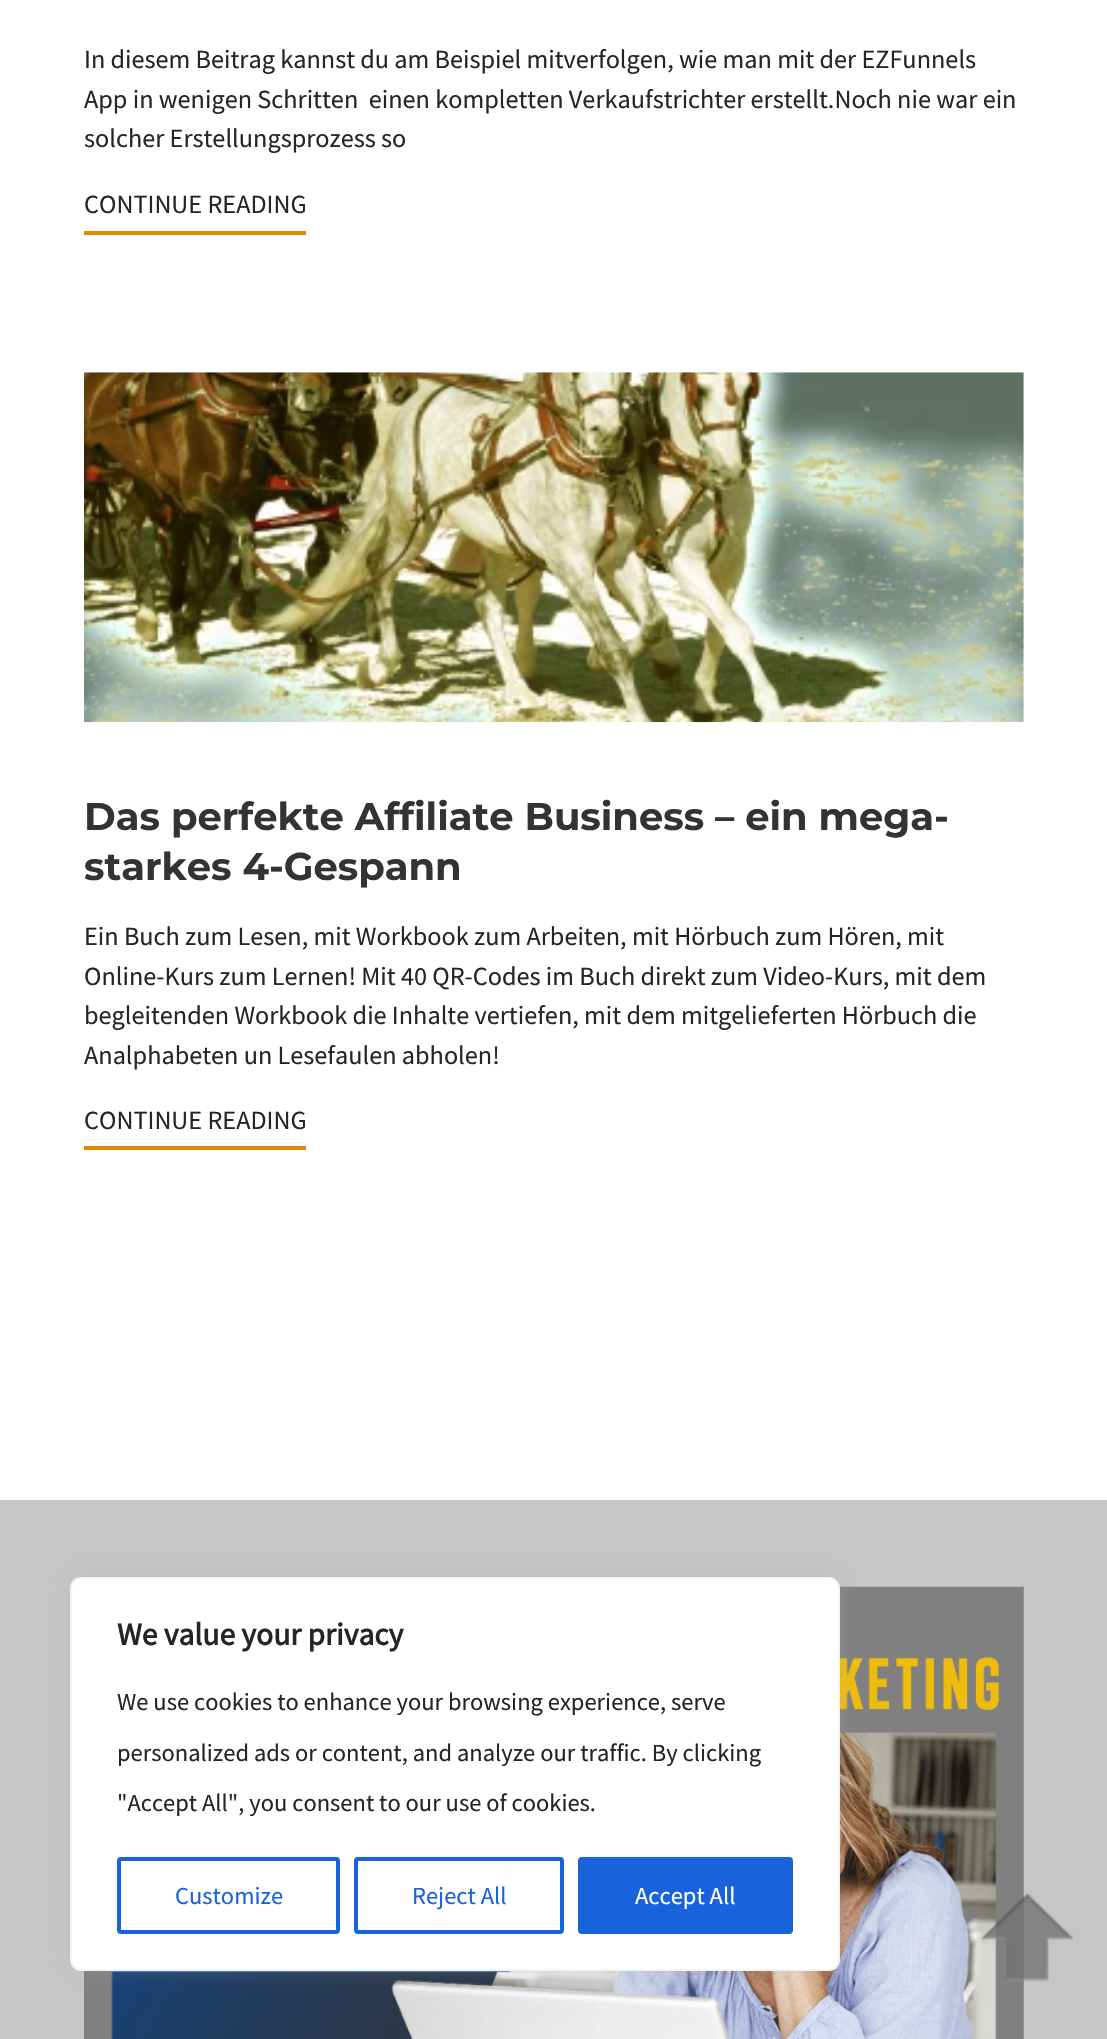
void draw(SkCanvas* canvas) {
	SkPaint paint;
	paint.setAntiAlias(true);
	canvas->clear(0xffffffff);
	SkFont f1(fontMgr->matchFamilyStyle("Source Sans Pro", SkFontStyle::Normal()), 26.25);
	f1.setSubpixel(true);
	paint.setColor(0xff252525);
	canvas->drawString("In diesem Beitrag kannst du am Beispiel mitverfolgen, wie man mit der EZFunnels", 84, 68, f1, paint);
	canvas->drawString("App in wenigen Schritten  einen kompletten Verkaufstrichter erstellt.Noch nie war ein", 84, 108, f1, paint);
	canvas->drawString("solcher Erstellungsprozess so", 84, 147, f1, paint);
	canvas->drawString("CONTINUE READING", 84, 213, f1, paint);
	paint.setColor(0xffe08a00);
	canvas->drawRect(SkRect::MakeXYWH(84, 231, 222, 4), paint);
	canvas->drawImageRect(SkImages::DeferredFromEncodedData(SkData::MakeFromFileName("img1.png")), SkRect::MakeXYWH(84, 372, 940, 351), SkSamplingOptions());
	SkFont f2(fontMgr->matchFamilyStyle("Montserrat", SkFontStyle::Bold()), 38.5);
	f2.setSubpixel(true);
	paint.setColor(0xff333333);
	canvas->drawString("Das perfekte Affiliate Business – ein mega-", 84, 830, f2, paint);
	canvas->drawString("starkes 4-Gespann", 84, 880, f2, paint);
	paint.setColor(0xff252525);
	canvas->drawString("Ein Buch zum Lesen, mit Workbook zum Arbeiten, mit Hörbuch zum Hören, mit", 84, 945, f1, paint);
	canvas->drawString("Online-Kurs zum Lernen! Mit 40 QR-Codes im Buch direkt zum Video-Kurs, mit dem", 84, 985, f1, paint);
	canvas->drawString("begleitenden Workbook die Inhalte vertiefen, mit dem mitgelieferten Hörbuch die", 84, 1024, f1, paint);
	canvas->drawString("Analphabeten un Lesefaulen abholen!", 84, 1064, f1, paint);
	canvas->drawString("CONTINUE READING", 84, 1129, f1, paint);
	paint.setColor(0xffe08a00);
	canvas->drawRect(SkRect::MakeXYWH(84, 1146, 222, 4), paint);
	paint.setColor(0xffc6c6c6);
	canvas->drawRect(SkRect::MakeXYWH(0, 1500, 1107, 539), paint);
	canvas->drawImageRect(SkImages::DeferredFromEncodedData(SkData::MakeFromFileName("img2.png")), SkRect::MakeXYWH(84, 1586, 940, 453), SkSamplingOptions());
	paint.setColor(0x4dacabab);
	paint.setMaskFilter(SkMaskFilter::MakeBlur(kNormal_SkBlurStyle, 9));
	canvas->drawRoundRect(SkRect::MakeXYWH(70, 1575, 770, 394), 11, 11, paint);
	paint.setMaskFilter(nullptr);
	paint.setColor(0xffffffff);
	canvas->drawRoundRect(SkRect::MakeXYWH(71, 1578, 768, 392), 10, 10, paint);
	paint.setStroke(true);
	paint.setStrokeWidth(2);
	paint.setColor(0xfff4f4f4);
	canvas->drawRoundRect(SkRect::MakeXYWH(71, 1578, 768, 392), 10, 10, paint);
	SkFont f3(fontMgr->matchFamilyStyle("Source Sans Pro", SkFontStyle::Bold()), 31.5);
	f3.setSubpixel(true);
	paint.setStroke(false);
	paint.setColor(0xff252525);
	canvas->drawString("We value your privacy", 117, 1645, f3, paint);
	SkFont f4(fontMgr->matchFamilyStyle("Source Sans Pro", SkFontStyle::Normal()), 24.5);
	f4.setSubpixel(true);
	canvas->drawString("We use cookies to enhance your browsing experience, serve", 117, 1710, f4, paint);
	canvas->drawString("personalized ads or content, and analyze our traffic. By clicking", 117, 1761, f4, paint);
	canvas->drawString("\"Accept All\", you consent to our use of cookies.", 117, 1811, f4, paint);
	paint.setStroke(true);
	paint.setStrokeWidth(4);
	paint.setColor(0xff1863dc);
	canvas->drawRoundRect(SkRect::MakeXYWH(119, 1859, 219, 73), 2, 2, paint);
	paint.setStroke(false);
	canvas->drawString("Customize", 175, 1904, f4, paint);
	paint.setStroke(true);
	canvas->drawRoundRect(SkRect::MakeXYWH(356, 1859, 206, 73), 2, 2, paint);
	paint.setStroke(false);
	canvas->drawString("Reject All", 412, 1904, f4, paint);
	canvas->drawRoundRect(SkRect::MakeXYWH(580, 1859, 211, 73), 2, 2, paint);
	paint.setStroke(true);
	canvas->drawRoundRect(SkRect::MakeXYWH(580, 1859, 211, 73), 2, 2, paint);
	paint.setStroke(false);
	paint.setColor(0xffffffff);
	canvas->drawString("Accept All", 635, 1904, f4, paint);
	canvas->drawImageRect(SkImages::DeferredFromEncodedData(SkData::MakeFromFileName("img3.png")), SkRect::MakeXYWH(981, 1893, 92, 89), SkSamplingOptions());
}
